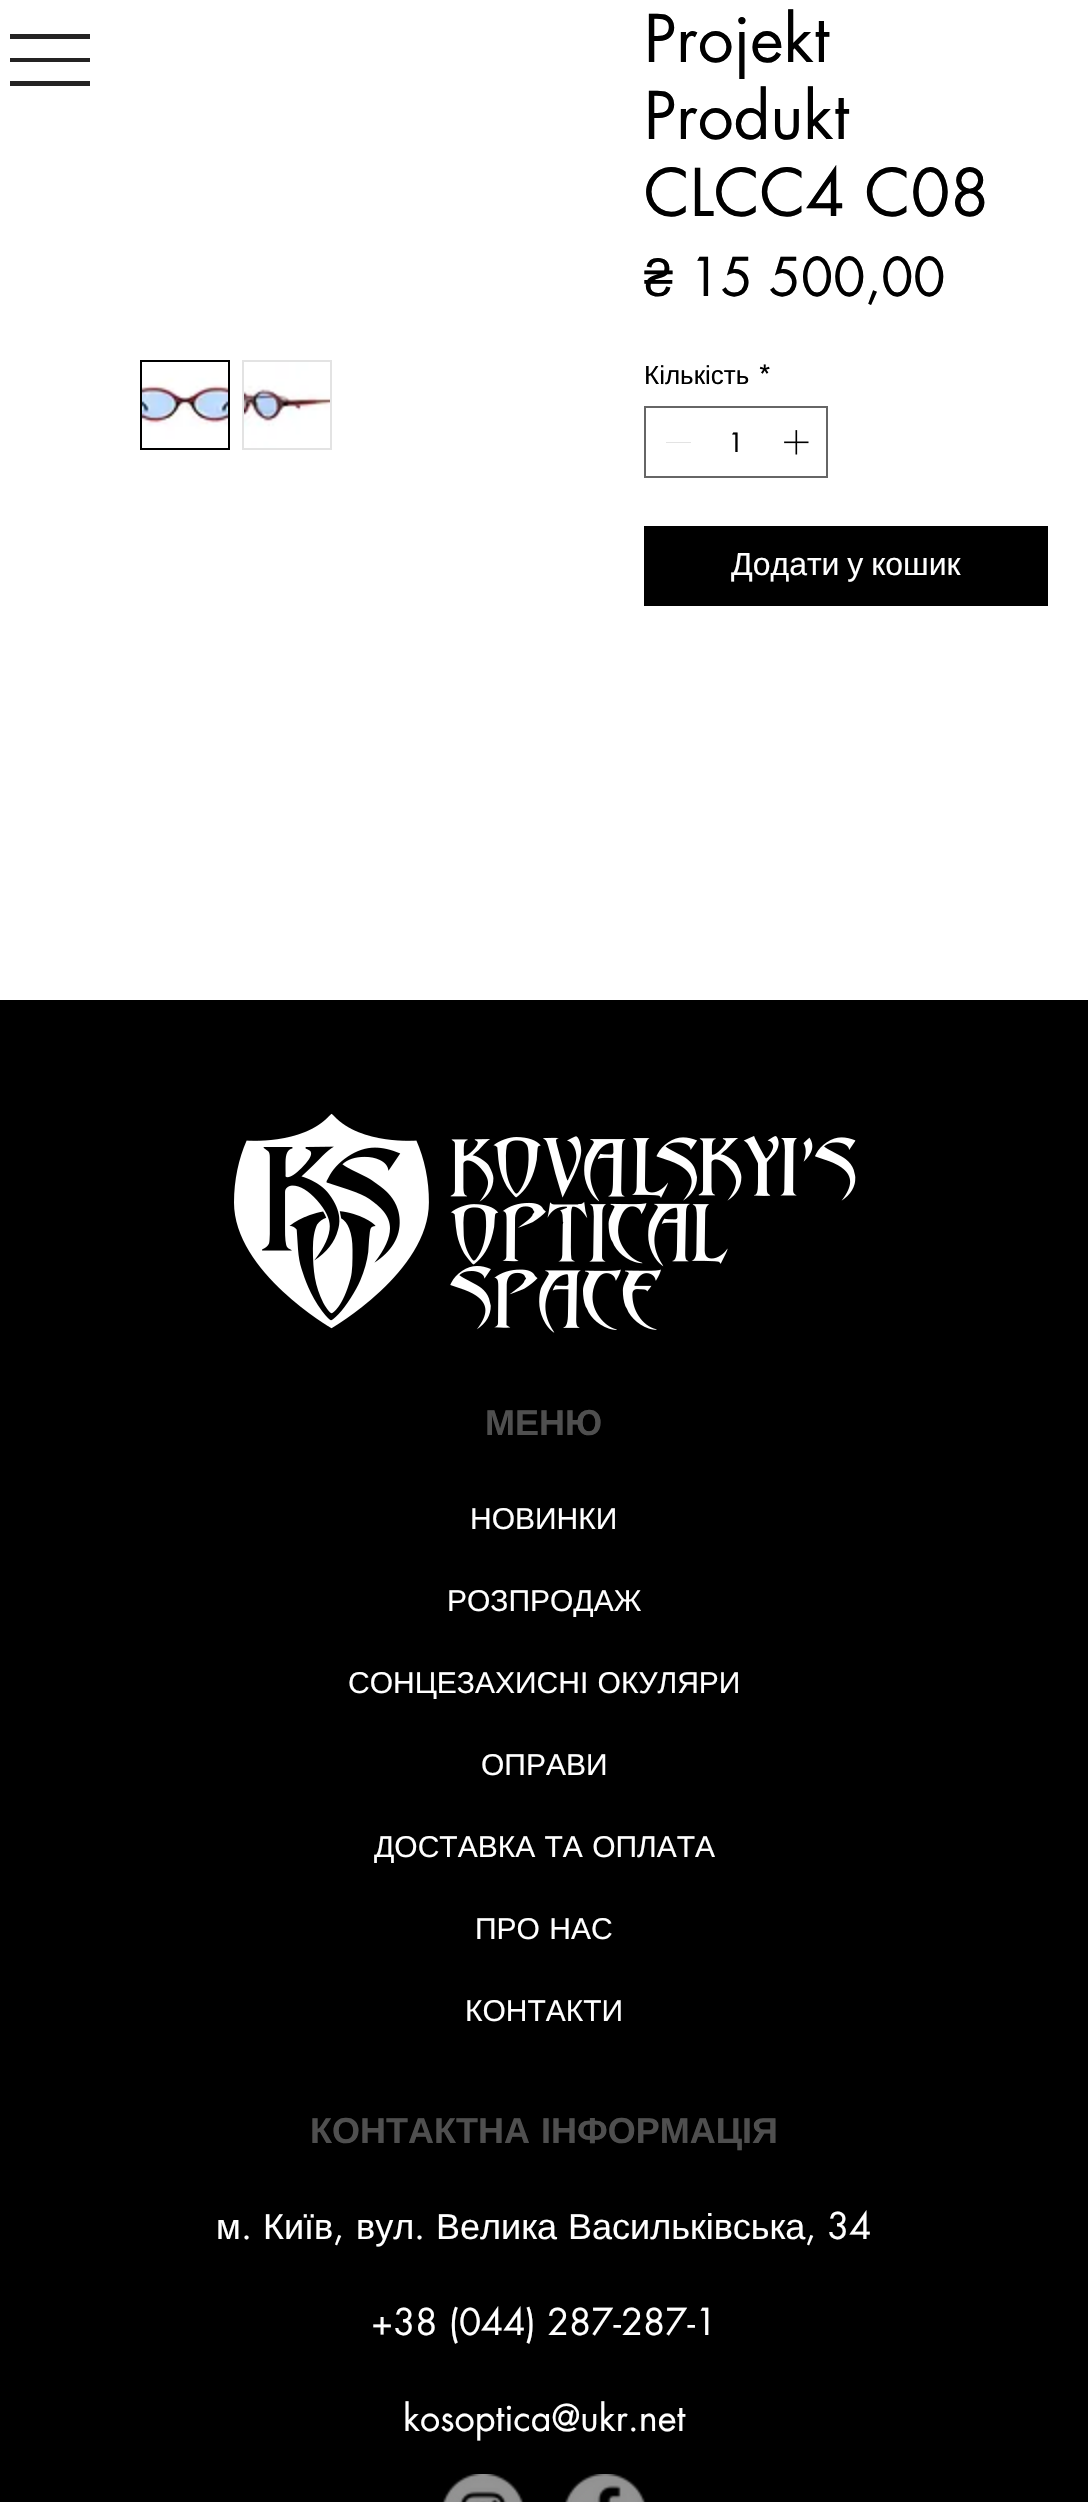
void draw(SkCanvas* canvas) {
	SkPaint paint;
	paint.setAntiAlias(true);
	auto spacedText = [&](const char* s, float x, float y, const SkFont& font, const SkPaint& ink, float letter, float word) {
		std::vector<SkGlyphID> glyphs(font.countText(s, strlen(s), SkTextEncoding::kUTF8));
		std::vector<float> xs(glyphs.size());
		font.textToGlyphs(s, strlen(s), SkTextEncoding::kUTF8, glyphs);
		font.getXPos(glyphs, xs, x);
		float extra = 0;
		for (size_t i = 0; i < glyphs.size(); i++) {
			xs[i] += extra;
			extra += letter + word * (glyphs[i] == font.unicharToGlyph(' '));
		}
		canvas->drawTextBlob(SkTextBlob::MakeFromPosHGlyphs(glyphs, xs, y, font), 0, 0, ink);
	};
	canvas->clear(0xffffffff);
	paint.setColor(0xff242323);
	canvas->drawRect(SkRect::MakeXYWH(10, 34, 80, 5), paint);
	canvas->drawRect(SkRect::MakeXYWH(10, 58, 80, 4), paint);
	canvas->drawRect(SkRect::MakeXYWH(10, 81, 80, 5), paint);
	paint.setStroke(true);
	paint.setStrokeWidth(2);
	paint.setColor(0xff000000);
	canvas->drawRect(SkRect::MakeXYWH(141, 361, 88, 88), paint);
	canvas->drawImageRect(SkImages::DeferredFromEncodedData(SkData::MakeFromFileName("img1.png")), SkRect::MakeXYWH(142, 362, 86, 86), SkSamplingOptions());
	paint.setStroke(false);
	paint.setColor(0xffe3e3e3);
	canvas->drawRect(SkRect::MakeXYWH(242, 360, 90, 90), paint);
	canvas->drawImageRect(SkImages::DeferredFromEncodedData(SkData::MakeFromFileName("img2.png")), SkRect::MakeXYWH(244, 362, 86, 86), SkSamplingOptions());
	SkFont f1(fontMgr->matchFamilyStyle("futura", SkFontStyle::Normal()), 64);
	f1.setSubpixel(true);
	paint.setColor(0xff000000);
	canvas->drawString("Projekt", 644, 62, f1, paint);
	canvas->drawString("Produkt", 644, 139, f1, paint);
	canvas->drawString("CLCC4 C08", 644, 216, f1, paint);
	SkFont f2(fontMgr->matchFamilyStyle("Liberation Sans", SkFontStyle::Normal()), 52);
	f2.setSubpixel(true);
	canvas->drawString("₴", 644, 296, f2, paint);
	SkFont f3(fontMgr->matchFamilyStyle("futura", SkFontStyle::Normal()), 52);
	f3.setSubpixel(true);
	canvas->drawString("15 500,00", 689, 296, f3, paint);
	SkFont f4(fontMgr->matchFamilyStyle("Liberation Sans", SkFontStyle::Normal()), 26);
	f4.setSubpixel(true);
	canvas->drawString("Кількість", 644, 384, f4, paint);
	SkFont f5(fontMgr->matchFamilyStyle("futura", SkFontStyle::Normal()), 26);
	f5.setSubpixel(true);
	canvas->drawString("*", 757, 384, f5, paint);
	paint.setStroke(true);
	paint.setColor(0xff666666);
	canvas->drawRect(SkRect::MakeXYWH(645, 407, 182, 70), paint);
	paint.setStroke(false);
	paint.setColor(0xffe3e3e3);
	canvas->drawRect(SkRect::MakeXYWH(666, 442, 25, 1), paint);
	paint.setColor(0xff000000);
	canvas->drawString("1", 728, 452, f5, paint);
	canvas->drawImageRect(SkImages::DeferredFromEncodedData(SkData::MakeFromFileName("img3.png")), SkRect::MakeXYWH(784, 430, 25, 25), SkSamplingOptions());
	canvas->drawRect(SkRect::MakeXYWH(644, 526, 404, 80), paint);
	SkFont f6(fontMgr->matchFamilyStyle("Liberation Sans", SkFontStyle::Normal()), 32);
	f6.setSubpixel(true);
	paint.setColor(0xffffffff);
	spacedText("Додати у кошик", 731, 575, f6, paint, 0, -1);
	paint.setColor(0xff000000);
	canvas->drawRect(SkRect::MakeXYWH(0, 1000, 1088, 1502), paint);
	canvas->drawImageRect(SkImages::DeferredFromEncodedData(SkData::MakeFromFileName("img4.png")), SkRect::MakeXYWH(234, 1113, 622, 220), SkSamplingOptions());
	SkFont f7(fontMgr->matchFamilyStyle("Liberation Sans", SkFontStyle::Bold()), 36);
	f7.setSubpixel(true);
	paint.setColor(0xff4f4f4f);
	canvas->drawString("МЕНЮ", 485, 1435, f7, paint);
	SkFont f8(fontMgr->matchFamilyStyle("Liberation Sans", SkFontStyle::Normal()), 30);
	f8.setSubpixel(true);
	paint.setColor(0xffffffff);
	canvas->drawString("НОВИНКИ", 470, 1529, f8, paint);
	canvas->drawString("РОЗПРОДАЖ", 447, 1611, f8, paint);
	spacedText("СОНЦЕЗАХИСНІ ОКУЛЯРИ", 348, 1693, f8, paint, 0, 1);
	canvas->drawString("ОПРАВИ", 481, 1775, f8, paint);
	spacedText("ДОСТАВКА ТА ОПЛАТА", 374, 1857, f8, paint, 0, 1);
	spacedText("ПРО НАС", 475, 1939, f8, paint, 0, 1);
	canvas->drawString("КОНТАКТИ", 465, 2021, f8, paint);
	paint.setColor(0xff4f4f4f);
	spacedText("КОНТАКТНА ІНФОРМАЦІЯ", 310, 2143, f7, paint, 0, 1);
	SkFont f9(fontMgr->matchFamilyStyle("Liberation Sans", SkFontStyle::Normal()), 36);
	f9.setSubpixel(true);
	paint.setColor(0xffffffff);
	canvas->drawString("м", 216, 2239, f9, paint);
	SkFont f10(fontMgr->matchFamilyStyle("futura", SkFontStyle::Normal()), 36);
	f10.setSubpixel(true);
	canvas->drawString(".", 241, 2239, f10, paint);
	canvas->drawString("Київ", 263, 2239, f9, paint);
	canvas->drawString(",", 333, 2239, f10, paint);
	canvas->drawString("вул", 356, 2239, f9, paint);
	canvas->drawString(".", 414, 2239, f10, paint);
	canvas->drawString("Велика", 436, 2239, f9, paint);
	canvas->drawString("Васильківська", 568, 2239, f9, paint);
	canvas->drawString(", 34", 805, 2239, f10, paint);
	canvas->drawString("+38 (044) 287-287-1", 371, 2335, f10, paint);
	canvas->drawString("kosoptica@ukr.net", 403, 2431, f10, paint);
	canvas->drawImageRect(SkImages::DeferredFromEncodedData(SkData::MakeFromFileName("img5.png")), SkRect::MakeXYWH(442, 2474, 82, 28), SkSamplingOptions());
	canvas->drawImageRect(SkImages::DeferredFromEncodedData(SkData::MakeFromFileName("img6.png")), SkRect::MakeXYWH(565, 2474, 81, 28), SkSamplingOptions());
}
